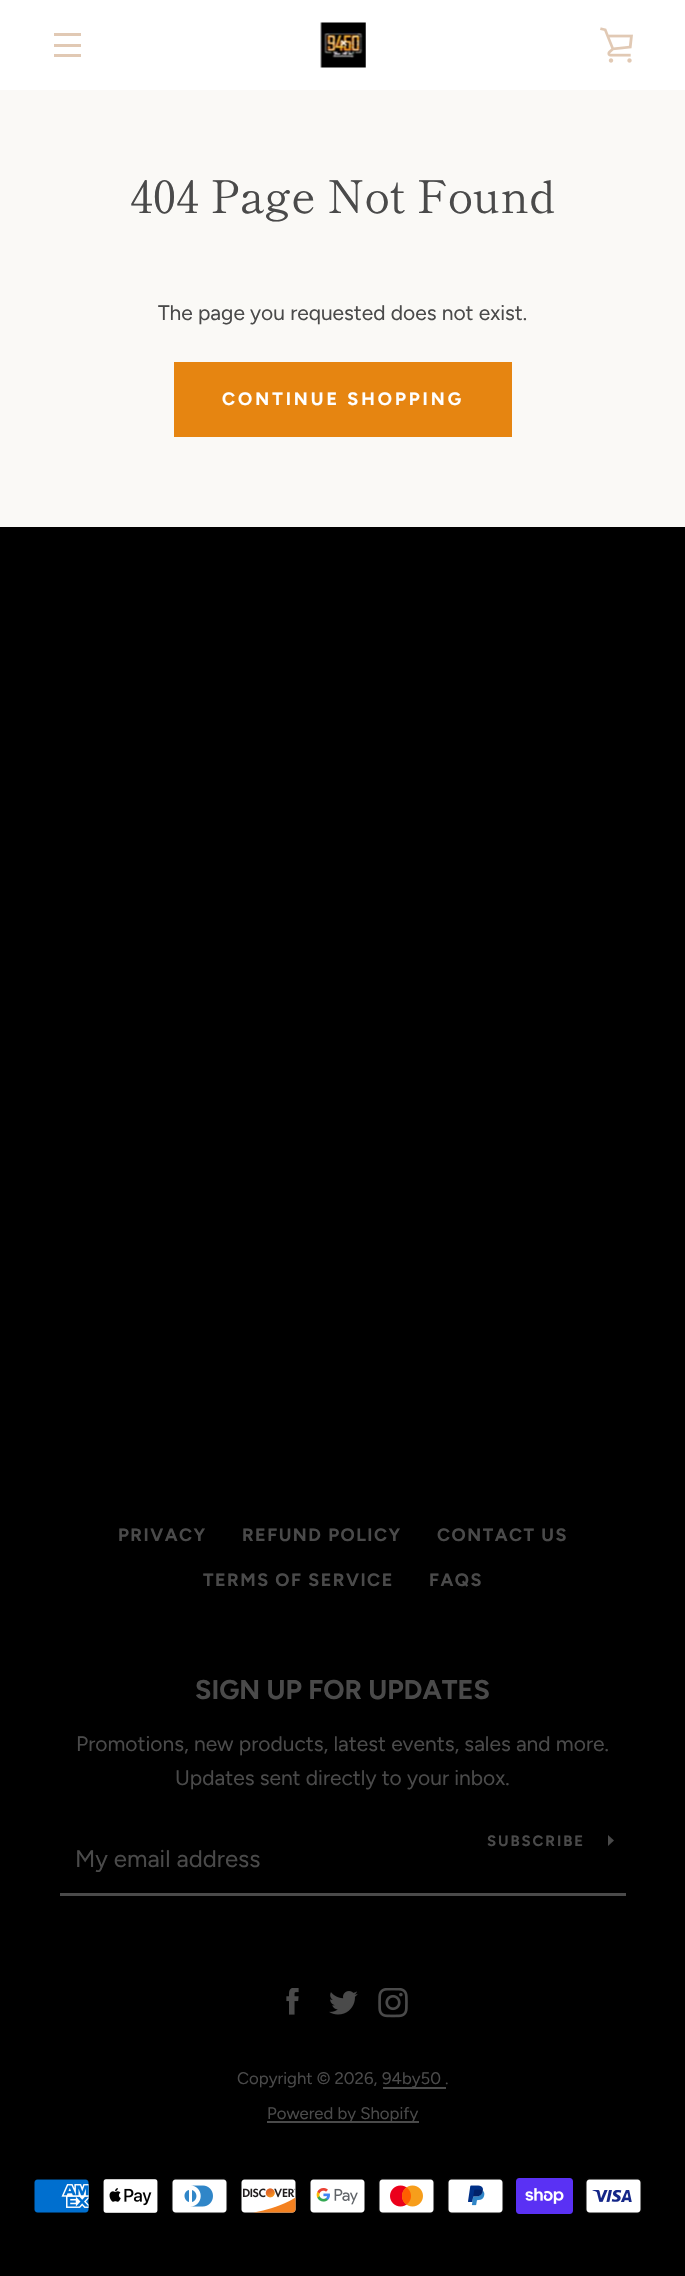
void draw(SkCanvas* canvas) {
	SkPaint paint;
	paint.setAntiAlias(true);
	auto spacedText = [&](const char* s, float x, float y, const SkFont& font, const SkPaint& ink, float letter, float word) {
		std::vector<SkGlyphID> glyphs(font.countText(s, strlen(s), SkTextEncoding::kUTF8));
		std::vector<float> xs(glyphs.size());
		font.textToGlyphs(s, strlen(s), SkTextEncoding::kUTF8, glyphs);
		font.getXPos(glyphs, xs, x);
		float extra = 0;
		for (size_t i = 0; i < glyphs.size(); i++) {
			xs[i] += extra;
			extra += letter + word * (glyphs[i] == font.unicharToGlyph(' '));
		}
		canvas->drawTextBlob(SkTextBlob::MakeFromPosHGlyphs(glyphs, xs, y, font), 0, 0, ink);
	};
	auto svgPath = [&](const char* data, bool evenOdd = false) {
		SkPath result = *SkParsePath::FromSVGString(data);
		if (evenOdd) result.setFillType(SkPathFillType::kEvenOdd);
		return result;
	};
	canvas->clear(0xff000000);
	paint.setColor(0xfffaf9f6);
	canvas->drawRect(SkRect::MakeXYWH(0, 90, 685, 437), paint);
	paint.setColor(0xffffffff);
	canvas->drawRect(SkRect::MakeXYWH(0, 0, 685, 90), paint);
	paint.setColor(0xffe1c9b4);
	canvas->drawRect(SkRect::MakeXYWH(54, 33, 27, 3), paint);
	canvas->drawRect(SkRect::MakeXYWH(54, 44, 27, 3), paint);
	canvas->drawRect(SkRect::MakeXYWH(54, 54, 27, 3), paint);
	canvas->drawImageRect(SkImages::DeferredFromEncodedData(SkData::MakeFromFileName("img1.png")), SkRect::MakeXYWH(320, 22, 46, 46), SkSamplingOptions());
	canvas->drawImageRect(SkImages::DeferredFromEncodedData(SkData::MakeFromFileName("img2.png")), SkRect::MakeXYWH(600, 27, 33, 36), SkSamplingOptions());
	SkFont f1(fontMgr->matchFamilyStyle("Shippori Mincho", SkFontStyle::Normal()), 45);
	f1.setSubpixel(true);
	paint.setColor(0xff4a4a4a);
	canvas->drawString("404 Page Not Found", 130, 213, f1, paint);
	SkFont f2(fontMgr->matchFamilyStyle("Figtree", SkFontStyle::Normal()), 21);
	f2.setSubpixel(true);
	canvas->drawString("The page you requested does not exist.", 158, 320, f2, paint);
	paint.setColor(0xffe68511);
	canvas->drawRect(SkRect::MakeXYWH(174, 362, 338, 75), paint);
	SkFont f3(fontMgr->matchFamilyStyle("Figtree", SkFontStyle::Bold()), 18);
	f3.setSubpixel(true);
	paint.setColor(0xffffffff);
	spacedText("CONTINUE SHOPPING", 222, 405, f3, paint, 3, 0);
	paint.setColor(0xff4a4a4a);
	spacedText("PRIVACY", 118, 1541, f3, paint, 1.5, 0);
	spacedText("REFUND POLICY", 242, 1541, f3, paint, 1.5, 0);
	spacedText("CONTACT US", 437, 1541, f3, paint, 1.5, 0);
	spacedText("TERMS OF SERVICE", 203, 1586, f3, paint, 1.5, 0);
	spacedText("FAQS", 429, 1586, f3, paint, 1.5, 0);
	SkFont f4(fontMgr->matchFamilyStyle("Figtree", SkFontStyle::Bold()), 27);
	f4.setSubpixel(true);
	canvas->drawString("SIGN UP FOR UPDATES", 195, 1699, f4, paint);
	canvas->drawString("Promotions, new products, latest events, sales and more.", 76, 1751, f2, paint);
	canvas->drawString("Updates sent directly to your inbox.", 175, 1785, f2, paint);
	canvas->drawRect(SkRect::MakeXYWH(60, 1893, 566, 3), paint);
	SkFont f5(fontMgr->matchFamilyStyle("Figtree", SkFontStyle::Bold()), 15);
	f5.setSubpixel(true);
	spacedText("SUBSCRIBE", 487, 1846, f5, paint, 1.9, 0);
	canvas->drawPath(svgPath("M614 1840.5L608 1846V1835Z"), paint);
	SkFont f6(fontMgr->matchFamilyStyle("Figtree", SkFontStyle::Normal()), 24);
	f6.setSubpixel(true);
	canvas->drawString("My email address", 75, 1867, f6, paint);
	canvas->drawImageRect(SkImages::DeferredFromEncodedData(SkData::MakeFromFileName("img3.png")), SkRect::MakeXYWH(286, 1988, 13, 27), SkSamplingOptions());
	canvas->drawImageRect(SkImages::DeferredFromEncodedData(SkData::MakeFromFileName("img4.png")), SkRect::MakeXYWH(329, 1991, 29, 24), SkSamplingOptions());
	canvas->drawImageRect(SkImages::DeferredFromEncodedData(SkData::MakeFromFileName("img5.png")), SkRect::MakeXYWH(378, 1988, 30, 30), SkSamplingOptions());
	SkFont f7(fontMgr->matchFamilyStyle("Figtree", SkFontStyle::Normal()), 16.75);
	f7.setSubpixel(true);
	canvas->drawString("Copyright © 2026,", 237, 2084, f7, paint);
	canvas->drawRect(SkRect::MakeXYWH(383, 2087, 63, 2), paint);
	canvas->drawString("94by50 .", 382, 2084, f7, paint);
	canvas->drawRect(SkRect::MakeXYWH(267, 2121, 152, 2), paint);
	canvas->drawString("Powered by Shopify", 267, 2119, f7, paint);
	canvas->drawImageRect(SkImages::DeferredFromEncodedData(SkData::MakeFromFileName("img6.png")), SkRect::MakeXYWH(34, 2179, 55, 34), SkSamplingOptions());
	canvas->drawImageRect(SkImages::DeferredFromEncodedData(SkData::MakeFromFileName("img7.png")), SkRect::MakeXYWH(103, 2179, 55, 34), SkSamplingOptions());
	canvas->drawImageRect(SkImages::DeferredFromEncodedData(SkData::MakeFromFileName("img8.png")), SkRect::MakeXYWH(171, 2178, 57, 36), SkSamplingOptions());
	canvas->drawImageRect(SkImages::DeferredFromEncodedData(SkData::MakeFromFileName("img9.png")), SkRect::MakeXYWH(241, 2179, 55, 34), SkSamplingOptions());
	canvas->drawImageRect(SkImages::DeferredFromEncodedData(SkData::MakeFromFileName("img10.png")), SkRect::MakeXYWH(310, 2179, 55, 34), SkSamplingOptions());
	canvas->drawImageRect(SkImages::DeferredFromEncodedData(SkData::MakeFromFileName("img11.png")), SkRect::MakeXYWH(378, 2178, 57, 36), SkSamplingOptions());
	canvas->drawImageRect(SkImages::DeferredFromEncodedData(SkData::MakeFromFileName("img12.png")), SkRect::MakeXYWH(447, 2178, 57, 36), SkSamplingOptions());
	canvas->drawImageRect(SkImages::DeferredFromEncodedData(SkData::MakeFromFileName("img13.png")), SkRect::MakeXYWH(516, 2178, 57, 36), SkSamplingOptions());
	canvas->drawImageRect(SkImages::DeferredFromEncodedData(SkData::MakeFromFileName("img14.png")), SkRect::MakeXYWH(585, 2178, 57, 36), SkSamplingOptions());
}
